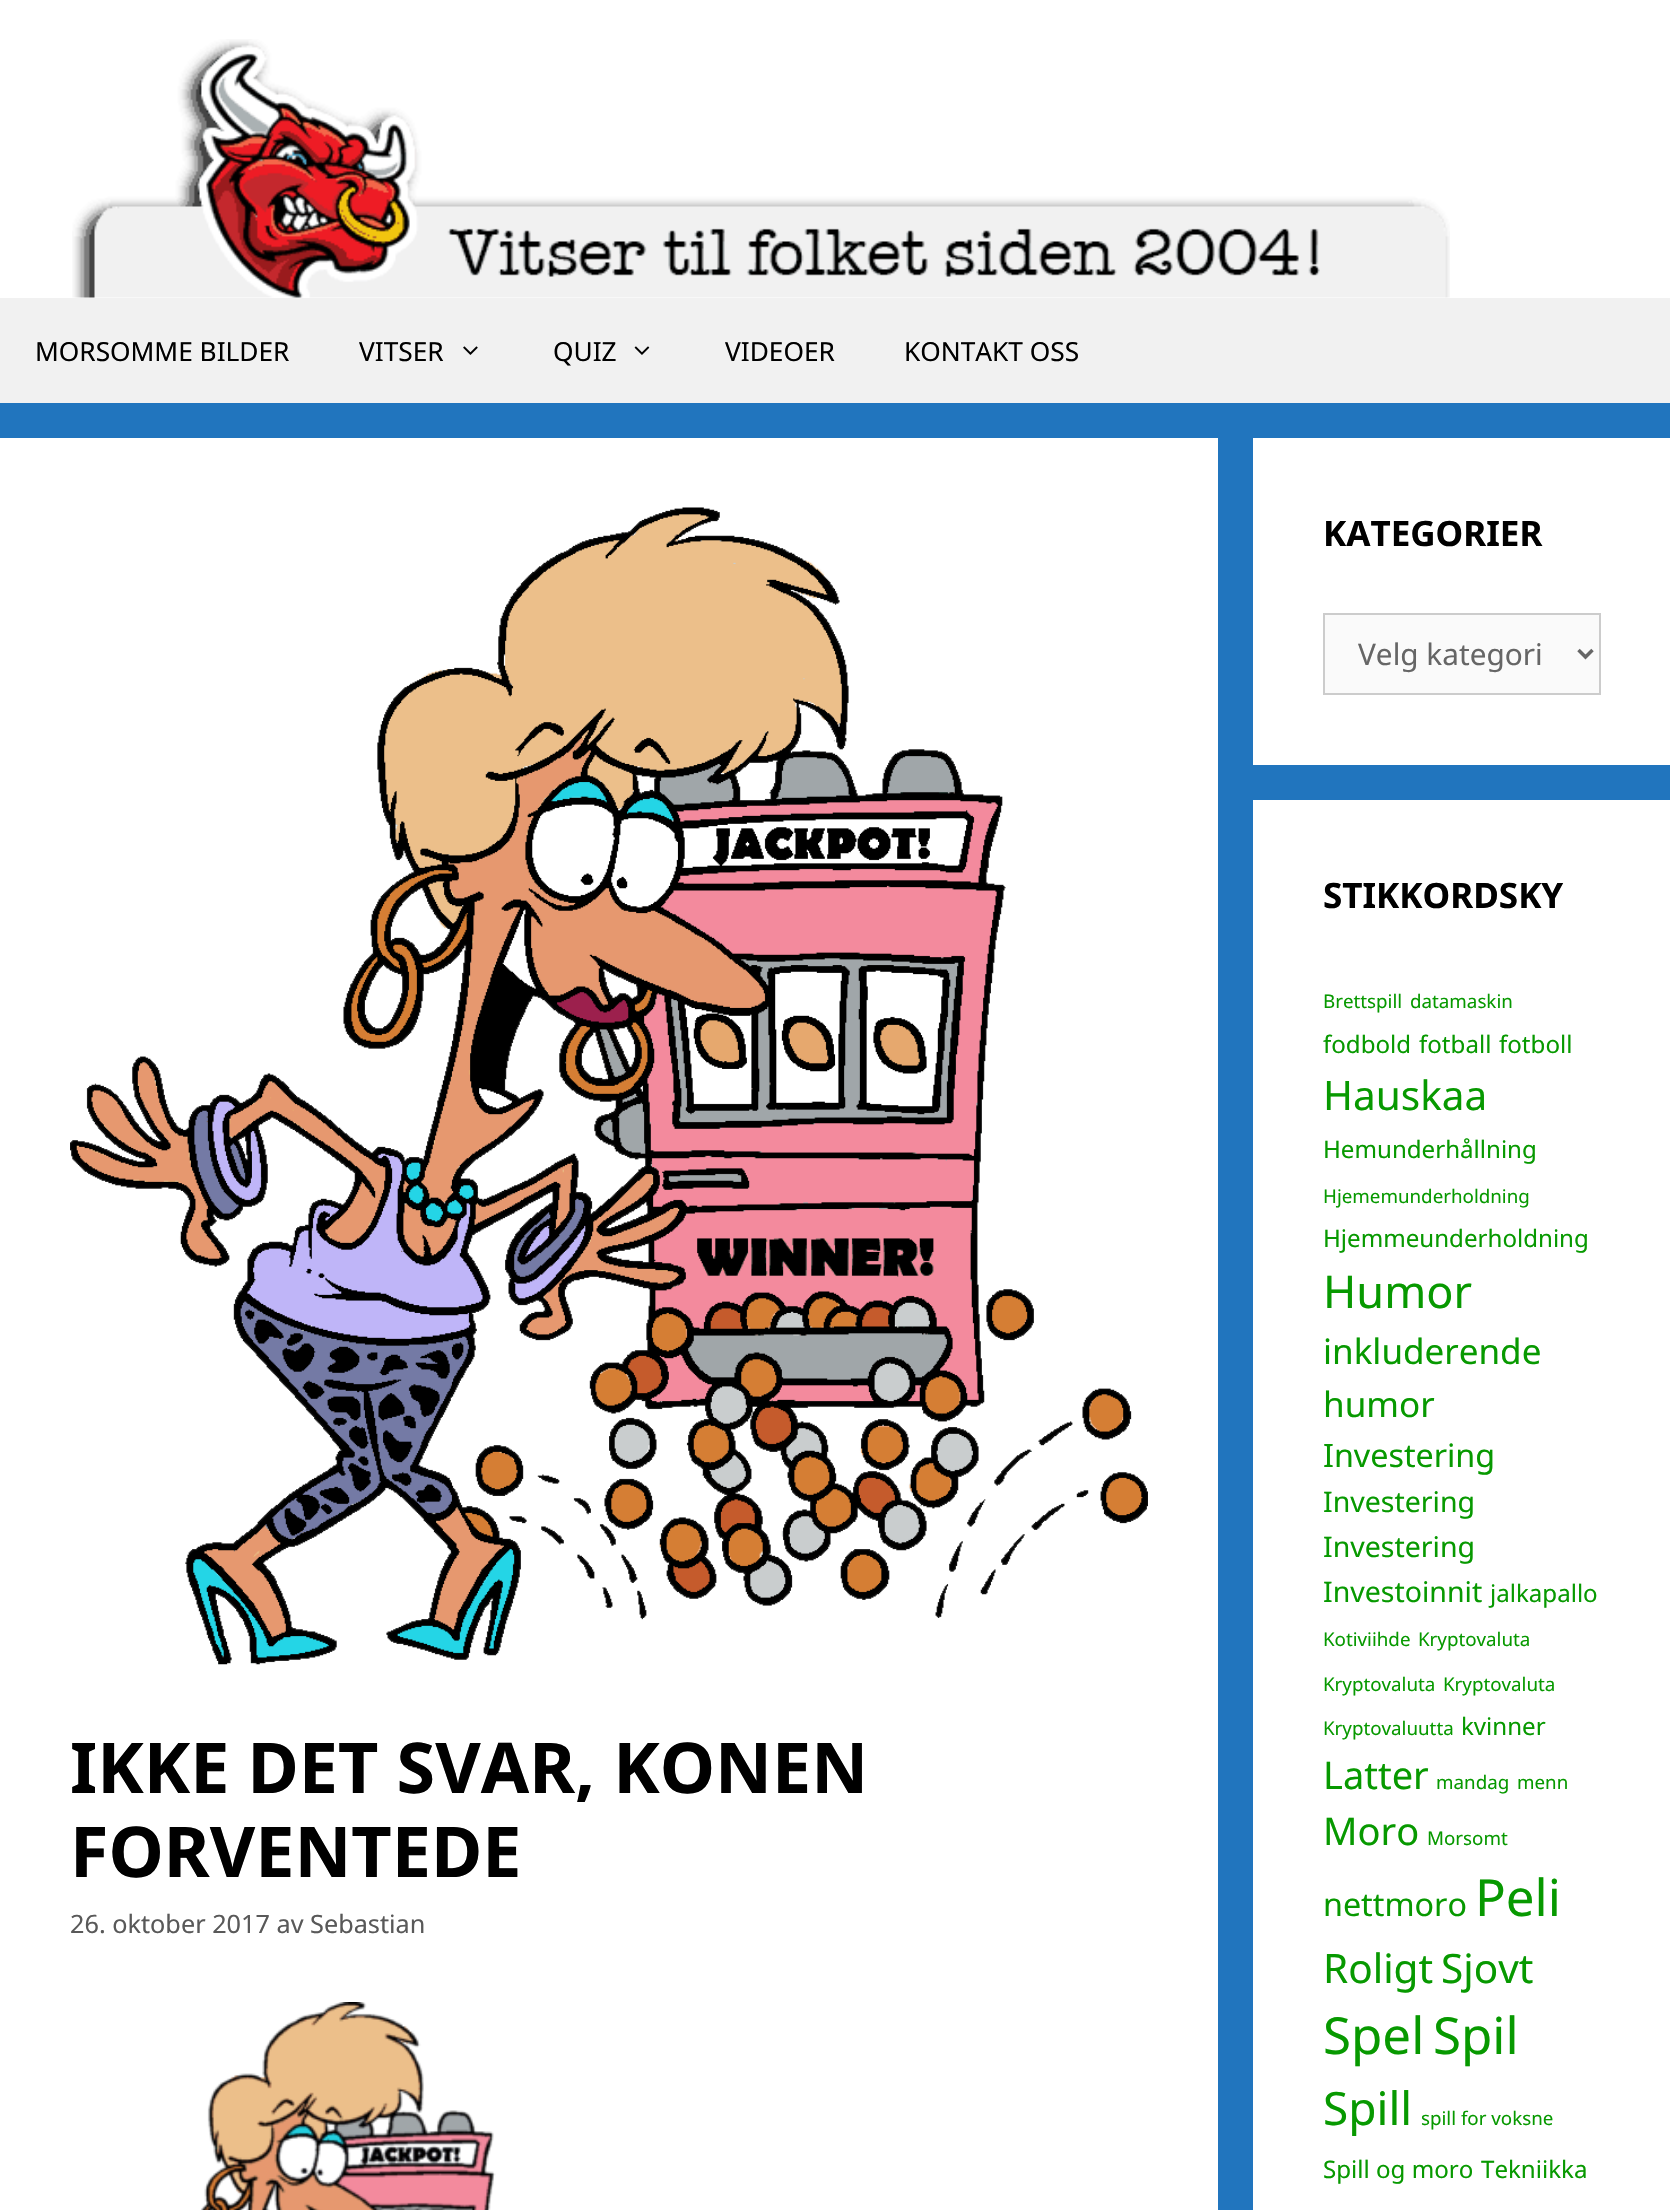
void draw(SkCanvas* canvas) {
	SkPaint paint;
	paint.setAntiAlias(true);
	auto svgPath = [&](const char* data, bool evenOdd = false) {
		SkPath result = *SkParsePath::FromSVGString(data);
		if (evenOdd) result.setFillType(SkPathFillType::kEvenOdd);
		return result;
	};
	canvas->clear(0xff2175be);
	paint.setColor(0xffffffff);
	canvas->drawRect(SkRect::MakeXYWH(0, 0, 1670, 298), paint);
	canvas->drawImageRect(SkImages::DeferredFromEncodedData(SkData::MakeFromFileName("img1.png")), SkRect::MakeXYWH(72, 39, 1378, 259), SkSamplingOptions());
	paint.setColor(0xfff1f1f1);
	canvas->drawRect(SkRect::MakeXYWH(0, 298, 1670, 105), paint);
	SkFont f1(fontMgr->matchFamilyStyle("Noto Sans", SkFontStyle::Normal()), 26.25);
	f1.setSubpixel(true);
	paint.setColor(0xff000000);
	canvas->drawString("MORSOMME BILDER", 35, 361, f1, paint);
	canvas->drawString("VITSER", 359, 361, f1, paint);
	canvas->drawImageRect(SkImages::DeferredFromEncodedData(SkData::MakeFromFileName("img2.png")), SkRect::MakeXYWH(463, 346, 15, 9), SkSamplingOptions());
	canvas->drawString("QUIZ", 553, 361, f1, paint);
	canvas->drawImageRect(SkImages::DeferredFromEncodedData(SkData::MakeFromFileName("img3.png")), SkRect::MakeXYWH(634, 346, 16, 9), SkSamplingOptions());
	canvas->drawString("VIDEOER", 725, 361, f1, paint);
	canvas->drawString("KONTAKT OSS", 904, 361, f1, paint);
	paint.setColor(0xffffffff);
	canvas->drawRect(SkRect::MakeXYWH(0, 438, 1218, 1772), paint);
	canvas->drawImageRect(SkImages::DeferredFromEncodedData(SkData::MakeFromFileName("img4.png")), SkRect::MakeXYWH(70, 507, 1078, 1158), SkSamplingOptions());
	SkFont f2(fontMgr->matchFamilyStyle("Noto Sans", SkFontStyle::Bold()), 70);
	f2.setSubpixel(true);
	paint.setColor(0xff000000);
	canvas->drawString("IKKE DET SVAR, KONEN", 70, 1793, f2, paint);
	canvas->drawString("FORVENTEDE", 70, 1877, f2, paint);
	SkFont f3(fontMgr->matchFamilyStyle("Noto Sans", SkFontStyle::Normal()), 25.25);
	f3.setSubpixel(true);
	paint.setColor(0xff595959);
	canvas->drawString("26. oktober 2017 av Sebastian", 70, 1933, f3, paint);
	canvas->drawImageRect(SkImages::DeferredFromEncodedData(SkData::MakeFromFileName("img5.png")), SkRect::MakeXYWH(200, 2002, 296, 208), SkSamplingOptions());
	paint.setColor(0xffffffff);
	canvas->drawRect(SkRect::MakeXYWH(1253, 438, 417, 327), paint);
	SkFont f4(fontMgr->matchFamilyStyle("Noto Sans", SkFontStyle::Bold()), 35);
	f4.setSubpixel(true);
	paint.setColor(0xff000000);
	canvas->drawString("KATEGORIER", 1323, 546, f4, paint);
	paint.setColor(0xfffafafa);
	canvas->drawRect(SkRect::MakeXYWH(1324, 614, 276, 80), paint);
	paint.setStroke(true);
	paint.setStrokeWidth(2);
	paint.setColor(0xffcccccc);
	canvas->drawRect(SkRect::MakeXYWH(1324, 614, 276, 80), paint);
	paint.setStrokeWidth(3.5);
	paint.setColor(0xff666666);
	canvas->drawPath(svgPath("M1578.5 650L1585.5 657L1592.5 650"), paint);
	SkFont f5(fontMgr->matchFamilyStyle("Noto Sans", SkFontStyle::Normal()), 29.75);
	f5.setSubpixel(true);
	paint.setStroke(false);
	canvas->drawString("Velg kategori", 1358, 665, f5, paint);
	paint.setColor(0xffffffff);
	canvas->drawRect(SkRect::MakeXYWH(1253, 800, 417, 1410), paint);
	paint.setColor(0xff000000);
	canvas->drawString("STIKKORDSKY", 1323, 908, f4, paint);
	SkFont f6(fontMgr->matchFamilyStyle("Noto Sans", SkFontStyle::Normal()), 18.75);
	f6.setSubpixel(true);
	paint.setColor(0xff079900);
	canvas->drawString("Brettspill", 1323, 1008, f6, paint);
	canvas->drawString("datamaskin", 1410, 1008, f6, paint);
	SkFont f7(fontMgr->matchFamilyStyle("Noto Sans", SkFontStyle::Normal()), 24.1);
	f7.setSubpixel(true);
	canvas->drawString("fodbold", 1323, 1053, f7, paint);
	canvas->drawString("fotball", 1419, 1053, f7, paint);
	canvas->drawString("fotboll", 1499, 1053, f7, paint);
	SkFont f8(fontMgr->matchFamilyStyle("Noto Sans", SkFontStyle::Normal()), 40.5);
	f8.setSubpixel(true);
	canvas->drawString("Hauskaa", 1323, 1110, f8, paint);
	canvas->drawString("Hemunderhållning", 1323, 1158, f7, paint);
	canvas->drawString("Hjememunderholdning", 1323, 1203, f6, paint);
	canvas->drawString("Hjemmeunderholdning", 1323, 1247, f7, paint);
	SkFont f9(fontMgr->matchFamilyStyle("Noto Sans", SkFontStyle::Normal()), 45);
	f9.setSubpixel(true);
	canvas->drawString("Humor", 1323, 1308, f9, paint);
	SkFont f10(fontMgr->matchFamilyStyle("Noto Sans", SkFontStyle::Normal()), 35);
	f10.setSubpixel(true);
	canvas->drawString("inkluderende", 1323, 1364, f10, paint);
	canvas->drawString("humor", 1323, 1417, f10, paint);
	SkFont f11(fontMgr->matchFamilyStyle("Noto Sans", SkFontStyle::Normal()), 32.25);
	f11.setSubpixel(true);
	canvas->drawString("Investering", 1323, 1467, f11, paint);
	SkFont f12(fontMgr->matchFamilyStyle("Noto Sans", SkFontStyle::Normal()), 28.5);
	f12.setSubpixel(true);
	canvas->drawString("Investering", 1323, 1512, f12, paint);
	canvas->drawString("Investering", 1323, 1557, f12, paint);
	canvas->drawString("Investoinnit", 1323, 1602, f12, paint);
	canvas->drawString("jalkapallo", 1490, 1602, f7, paint);
	canvas->drawString("Kotiviihde", 1323, 1646, f6, paint);
	canvas->drawString("Kryptovaluta", 1418, 1646, f6, paint);
	canvas->drawString("Kryptovaluta", 1323, 1691, f6, paint);
	canvas->drawString("Kryptovaluta", 1443, 1691, f6, paint);
	canvas->drawString("Kryptovaluutta", 1323, 1735, f6, paint);
	canvas->drawString("kvinner", 1461, 1735, f7, paint);
	SkFont f13(fontMgr->matchFamilyStyle("Noto Sans", SkFontStyle::Normal()), 38);
	f13.setSubpixel(true);
	canvas->drawString("Latter", 1323, 1789, f13, paint);
	canvas->drawString("mandag", 1436, 1789, f6, paint);
	canvas->drawString("menn", 1517, 1789, f6, paint);
	canvas->drawString("Moro", 1323, 1845, f13, paint);
	canvas->drawString("Morsomt", 1427, 1845, f6, paint);
	canvas->drawString("nettmoro", 1323, 1916, f11, paint);
	SkFont f14(fontMgr->matchFamilyStyle("Noto Sans", SkFontStyle::Normal()), 51);
	f14.setSubpixel(true);
	canvas->drawString("Peli", 1475, 1916, f14, paint);
	canvas->drawString("Roligt", 1323, 1983, f8, paint);
	canvas->drawString("Sjovt", 1441, 1983, f8, paint);
	canvas->drawString("Spel", 1323, 2054, f14, paint);
	canvas->drawString("Spil", 1433, 2054, f14, paint);
	SkFont f15(fontMgr->matchFamilyStyle("Noto Sans", SkFontStyle::Normal()), 46);
	f15.setSubpixel(true);
	canvas->drawString("Spill", 1323, 2125, f15, paint);
	canvas->drawString("spill for voksne", 1421, 2125, f6, paint);
	canvas->drawString("Spill og moro", 1323, 2178, f7, paint);
	canvas->drawString("Tekniikka", 1481, 2178, f7, paint);
}
